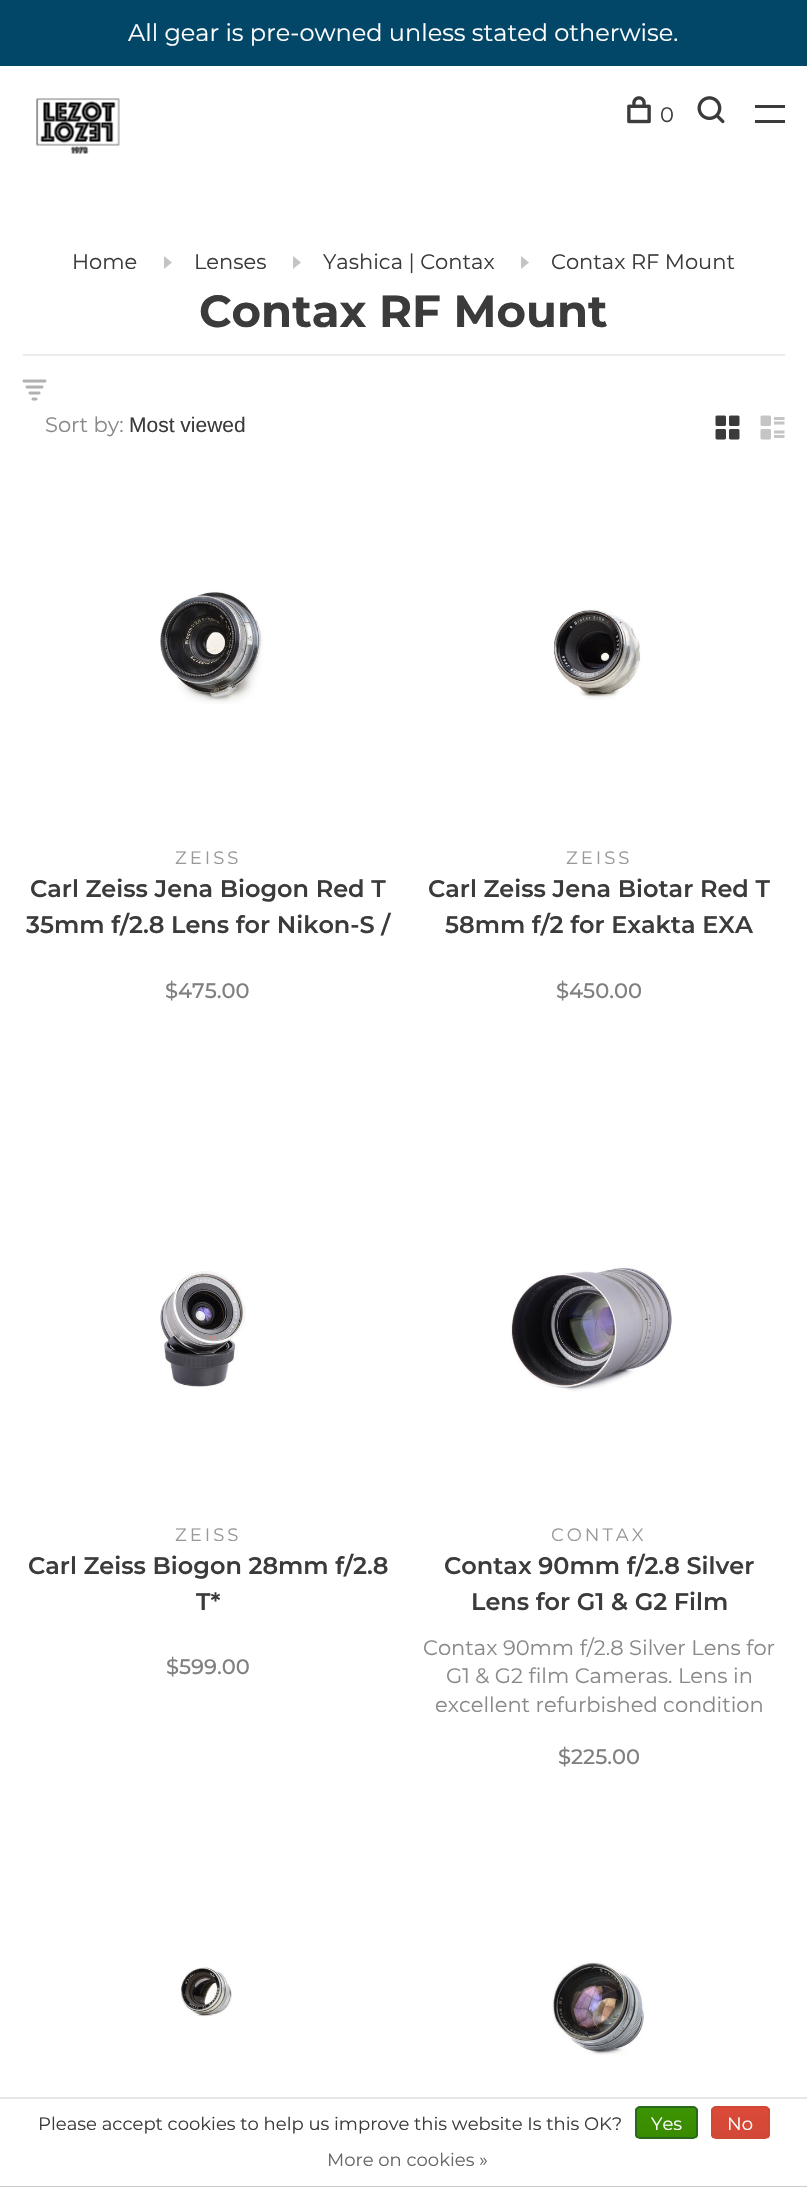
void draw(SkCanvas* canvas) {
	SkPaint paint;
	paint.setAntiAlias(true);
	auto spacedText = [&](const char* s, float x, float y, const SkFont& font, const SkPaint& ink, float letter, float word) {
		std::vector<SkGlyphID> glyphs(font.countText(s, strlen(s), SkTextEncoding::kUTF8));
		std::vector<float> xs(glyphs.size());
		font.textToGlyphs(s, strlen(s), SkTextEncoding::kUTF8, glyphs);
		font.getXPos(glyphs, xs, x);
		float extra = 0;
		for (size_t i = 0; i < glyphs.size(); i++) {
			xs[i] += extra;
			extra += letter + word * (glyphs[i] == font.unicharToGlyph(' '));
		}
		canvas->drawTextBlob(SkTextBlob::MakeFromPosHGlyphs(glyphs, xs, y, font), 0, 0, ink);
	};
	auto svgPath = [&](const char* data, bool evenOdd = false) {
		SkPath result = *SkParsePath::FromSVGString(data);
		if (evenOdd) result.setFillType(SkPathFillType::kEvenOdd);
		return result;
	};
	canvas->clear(0xffffffff);
	paint.setColor(0xff024668);
	canvas->drawRect(SkRect::MakeXYWH(0, 0, 807, 66), paint);
	SkFont f1(fontMgr->matchFamilyStyle("Montserrat", SkFontStyle::Normal()), 24);
	f1.setSubpixel(true);
	paint.setColor(0xffffffff);
	canvas->drawString("All gear is pre-owned unless stated otherwise.", 128, 41, f1, paint);
	canvas->drawImageRect(SkImages::DeferredFromEncodedData(SkData::MakeFromFileName("img1.png")), SkRect::MakeXYWH(36, 98, 84, 56), SkSamplingOptions());
	canvas->drawImageRect(SkImages::DeferredFromEncodedData(SkData::MakeFromFileName("img2.png")), SkRect::MakeXYWH(627, 96, 24, 28), SkSamplingOptions());
	SkFont f2(fontMgr->matchFamilyStyle("Montserrat", SkFontStyle::Normal()), 21);
	f2.setSubpixel(true);
	paint.setColor(0xff3b3b3b);
	canvas->drawString("0", 660, 122, f2, paint);
	canvas->drawImageRect(SkImages::DeferredFromEncodedData(SkData::MakeFromFileName("img3.png")), SkRect::MakeXYWH(697, 96, 28, 28), SkSamplingOptions());
	canvas->drawRect(SkRect::MakeXYWH(755, 105, 30, 3), paint);
	canvas->drawRect(SkRect::MakeXYWH(755, 120, 30, 3), paint);
	canvas->drawString("Home", 72, 269, f2, paint);
	paint.setColor(0xffc4c4c4);
	canvas->drawPath(svgPath("M164 269L172 262.5L164 256Z"), paint);
	paint.setColor(0xff3b3b3b);
	canvas->drawString("Lenses", 194, 269, f2, paint);
	paint.setColor(0xffc4c4c4);
	canvas->drawPath(svgPath("M293 269L301 262.5L293 256Z"), paint);
	paint.setColor(0xff3b3b3b);
	canvas->drawString("Yashica | Contax", 323, 269, f2, paint);
	paint.setColor(0xffc4c4c4);
	canvas->drawPath(svgPath("M521 269L529 262.5L521 256Z"), paint);
	paint.setColor(0xff3b3b3b);
	canvas->drawString("Contax RF Mount", 551, 269, f2, paint);
	SkFont f3(fontMgr->matchFamilyStyle("Montserrat", SkFontStyle::Bold()), 45);
	f3.setSubpixel(true);
	canvas->drawString("Contax RF Mount", 199, 327, f3, paint);
	paint.setColor(0xffebebeb);
	canvas->drawRect(SkRect::MakeXYWH(23, 354, 762, 2), paint);
	canvas->drawImageRect(SkImages::DeferredFromEncodedData(SkData::MakeFromFileName("img4.png")), SkRect::MakeXYWH(22, 379, 25, 22), SkSamplingOptions());
	paint.setColor(0xff898989);
	canvas->drawString("Sort by:", 45, 432, f2, paint);
	SkFont f4(fontMgr->matchFamilyStyle("Liberation Sans", SkFontStyle::Normal()), 21);
	f4.setSubpixel(true);
	paint.setColor(0xff3b3b3b);
	canvas->drawString("Most viewed", 129, 432, f4, paint);
	canvas->drawImageRect(SkImages::DeferredFromEncodedData(SkData::MakeFromFileName("img5.png")), SkRect::MakeXYWH(715, 415, 25, 25), SkSamplingOptions());
	canvas->drawImageRect(SkImages::DeferredFromEncodedData(SkData::MakeFromFileName("img6.png")), SkRect::MakeXYWH(760, 415, 25, 25), SkSamplingOptions());
	canvas->drawImageRect(SkImages::DeferredFromEncodedData(SkData::MakeFromFileName("img7.png")), SkRect::MakeXYWH(159, 591, 104, 113), SkSamplingOptions());
	SkFont f5(fontMgr->matchFamilyStyle("Montserrat", SkFontStyle::Normal()), 18);
	f5.setSubpixel(true);
	paint.setColor(0xff999999);
	spacedText("ZEISS", 175, 864, f5, paint, 3, 0);
	SkFont f6(fontMgr->matchFamilyStyle("Montserrat", SkFontStyle(600, SkFontStyle::kNormal_Width, SkFontStyle::kUpright_Slant)), 24);
	f6.setSubpixel(true);
	paint.setColor(0xff3b3b3b);
	canvas->drawString("Carl Zeiss Jena Biogon Red T", 30, 897, f6, paint);
	canvas->drawString("35mm f/2.8 Lens for Nikon-S /", 26, 933, f6, paint);
	SkFont f7(fontMgr->matchFamilyStyle("Montserrat", SkFontStyle(500, SkFontStyle::kNormal_Width, SkFontStyle::kUpright_Slant)), 21);
	f7.setSubpixel(true);
	paint.setColor(0xff808080);
	canvas->drawString("$475.00", 165, 998, f7, paint);
	canvas->drawImageRect(SkImages::DeferredFromEncodedData(SkData::MakeFromFileName("img8.png")), SkRect::MakeXYWH(553, 607, 89, 93), SkSamplingOptions());
	paint.setColor(0xff999999);
	spacedText("ZEISS", 566, 864, f5, paint, 3, 0);
	paint.setColor(0xff3b3b3b);
	canvas->drawString("Carl Zeiss Jena Biotar Red T", 428, 897, f6, paint);
	canvas->drawString("58mm f/2 for Exakta EXA", 445, 933, f6, paint);
	paint.setColor(0xff808080);
	canvas->drawString("$450.00", 556, 998, f7, paint);
	canvas->drawImageRect(SkImages::DeferredFromEncodedData(SkData::MakeFromFileName("img9.png")), SkRect::MakeXYWH(160, 1271, 86, 116), SkSamplingOptions());
	paint.setColor(0xff999999);
	spacedText("ZEISS", 175, 1541, f5, paint, 3, 0);
	paint.setColor(0xff3b3b3b);
	canvas->drawString("Carl Zeiss Biogon 28mm f/2.8", 28, 1574, f6, paint);
	canvas->drawString("T*", 196, 1610, f6, paint);
	paint.setColor(0xff808080);
	canvas->drawString("$599.00", 166, 1674, f7, paint);
	canvas->drawImageRect(SkImages::DeferredFromEncodedData(SkData::MakeFromFileName("img10.png")), SkRect::MakeXYWH(510, 1266, 163, 126), SkSamplingOptions());
	paint.setColor(0xff999999);
	spacedText("CONTAX", 551, 1541, f5, paint, 3, 0);
	paint.setColor(0xff3b3b3b);
	canvas->drawString("Contax 90mm f/2.8 Silver", 444, 1574, f6, paint);
	canvas->drawString("Lens for G1 & G2 Film", 471, 1610, f6, paint);
	paint.setColor(0xff898989);
	canvas->drawString("Contax 90mm f/2.8 Silver Lens for", 423, 1655, f2, paint);
	canvas->drawString("G1 & G2 film Cameras. Lens in", 446, 1683, f2, paint);
	canvas->drawString("excellent refurbished condition", 435, 1712, f2, paint);
	paint.setColor(0xff808080);
	canvas->drawString("$225.00", 558, 1764, f7, paint);
	canvas->drawImageRect(SkImages::DeferredFromEncodedData(SkData::MakeFromFileName("img11.png")), SkRect::MakeXYWH(180, 1967, 52, 50), SkSamplingOptions());
	canvas->drawImageRect(SkImages::DeferredFromEncodedData(SkData::MakeFromFileName("img12.png")), SkRect::MakeXYWH(552, 1962, 92, 93), SkSamplingOptions());
	paint.setColor(0xffe6e6e6);
	canvas->drawRect(SkRect::MakeXYWH(0, 2097, 807, 2), paint);
	paint.setColor(0xffcccccc);
	canvas->drawRect(SkRect::MakeXYWH(0, 2186, 807, 1), paint);
	paint.setColor(0xff3b3b3b);
	canvas->drawString("Please accept cookies to help us improve this website Is this OK?", 38, 2130, f5, paint);
	canvas->save();
	canvas->clipPath(svgPath("M640 2106H693C696 2106 698 2108 698 2111V2134C698 2137 696 2139 693 2139H640C637 2139 635 2137 635 2134V2111C635 2108 637 2106 640 2106Z"), true);
	{
		const SkColor colors[] = {0xff3c9300, 0xff398a00};
		const float stops[] = {0, 1};
		const SkPoint ends[] = {{666, 2108}, {666, 2138}};
		paint.setShader(SkGradientShader::MakeLinear(ends, colors, stops, 2, SkTileMode::kClamp));
		paint.setAlpha(255);
	}
	canvas->drawRect(SkRect::MakeXYWH(635, 2108, 63, 30), paint);
	canvas->restore();
	paint.setStroke(true);
	paint.setStrokeWidth(2);
	paint.setShader(nullptr);
	paint.setColor(0xff29691d);
	canvas->drawRoundRect(SkRect::MakeXYWH(636, 2107, 61, 31), 4, 4, paint);
	paint.setStroke(false);
	paint.setColor(0xffffffff);
	canvas->drawString("Yes", 651, 2130, f5, paint);
	canvas->save();
	canvas->clipPath(svgPath("M716 2106H765C768 2106 770 2108 770 2111V2134C770 2137 768 2139 765 2139H716C713 2139 711 2137 711 2134V2111C711 2108 713 2106 716 2106Z"), true);
	{
		const SkColor colors[] = {0xffdc4a38, 0xffd14836};
		const float stops[] = {0, 1};
		const SkPoint ends[] = {{740, 2108}, {740, 2138}};
		paint.setShader(SkGradientShader::MakeLinear(ends, colors, stops, 2, SkTileMode::kClamp));
		paint.setAlpha(255);
	}
	canvas->drawRect(SkRect::MakeXYWH(711, 2108, 59, 30), paint);
	canvas->restore();
	paint.setStroke(true);
	paint.setShader(nullptr);
	paint.setColor(0xffd14836);
	canvas->drawRoundRect(SkRect::MakeXYWH(712, 2107, 57, 31), 4, 4, paint);
	paint.setStroke(false);
	paint.setColor(0xffffffff);
	canvas->drawString("No", 727, 2130, f5, paint);
	paint.setColor(0xff666666);
	canvas->drawString("More on cookies »", 327, 2166, f5, paint);
}
